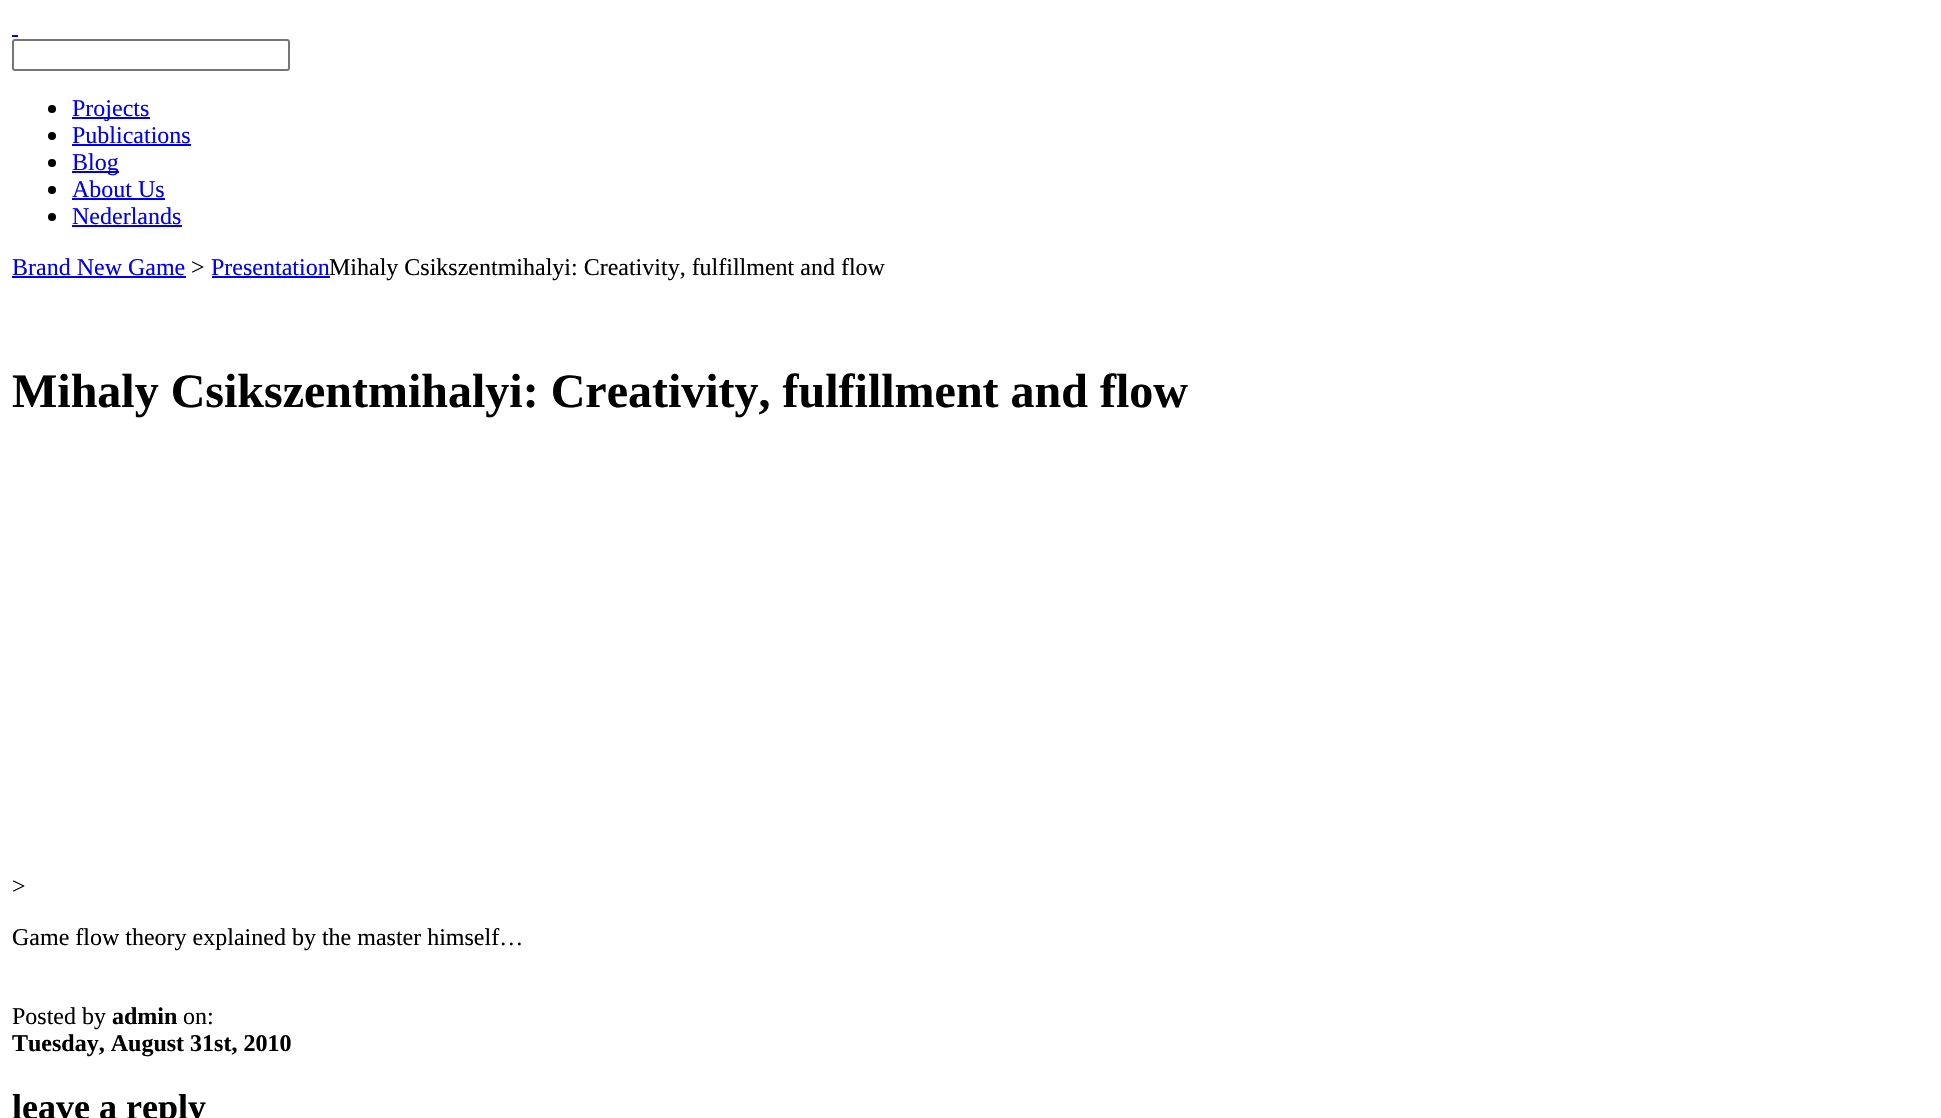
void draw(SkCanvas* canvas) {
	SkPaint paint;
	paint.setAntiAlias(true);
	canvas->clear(0xffffffff);
	paint.setColor(0xff0000ee);
	canvas->drawRect(SkRect::MakeXYWH(12, 35, 6, 2), paint);
	paint.setStroke(true);
	paint.setStrokeWidth(2);
	paint.setColor(0xff767676);
	canvas->drawRoundRect(SkRect::MakeXYWH(13, 40, 276, 30), 2, 2, paint);
	paint.setStroke(false);
	paint.setColor(0xff000000);
	canvas->drawCircle(52, 109, 4, paint);
	paint.setColor(0xff0000ee);
	canvas->drawRect(SkRect::MakeXYWH(72, 117, 78, 2), paint);
	SkFont f1(fontMgr->matchFamilyStyle("Liberation Serif", SkFontStyle::Normal()), 24);
	f1.setSubpixel(true);
	canvas->drawString("Projects", 72, 116, f1, paint);
	paint.setColor(0xff000000);
	canvas->drawCircle(52, 136, 4, paint);
	paint.setColor(0xff0000ee);
	canvas->drawString("Publications", 72, 143, f1, paint);
	canvas->drawRect(SkRect::MakeXYWH(72, 144, 119, 2), paint);
	paint.setColor(0xff000000);
	canvas->drawCircle(52, 163, 4, paint);
	paint.setColor(0xff0000ee);
	canvas->drawRect(SkRect::MakeXYWH(72, 171, 47, 2), paint);
	canvas->drawString("Blog", 72, 170, f1, paint);
	paint.setColor(0xff000000);
	canvas->drawCircle(52, 190, 4, paint);
	paint.setColor(0xff0000ee);
	canvas->drawString("About Us", 72, 197, f1, paint);
	canvas->drawRect(SkRect::MakeXYWH(72, 198, 93, 2), paint);
	paint.setColor(0xff000000);
	canvas->drawCircle(52, 217, 4, paint);
	paint.setColor(0xff0000ee);
	canvas->drawString("Nederlands", 72, 224, f1, paint);
	canvas->drawRect(SkRect::MakeXYWH(72, 225, 110, 2), paint);
	canvas->drawString("Brand New Game", 12, 275, f1, paint);
	canvas->drawRect(SkRect::MakeXYWH(12, 276, 174, 2), paint);
	paint.setColor(0xff000000);
	canvas->drawString(">", 191, 275, f1, paint);
	paint.setColor(0xff0000ee);
	canvas->drawString("Presentation", 211, 275, f1, paint);
	canvas->drawRect(SkRect::MakeXYWH(212, 276, 118, 2), paint);
	paint.setColor(0xff000000);
	canvas->drawString("Mihaly Csikszentmihalyi: Creativity, fulfillment and flow", 329, 275, f1, paint);
	SkFont f2(fontMgr->matchFamilyStyle("Liberation Serif", SkFontStyle::Bold()), 48);
	f2.setSubpixel(true);
	canvas->drawString("Mihaly Csikszentmihalyi: Creativity, fulfillment and flow", 12, 407, f2, paint);
	canvas->drawString(">", 12, 894, f1, paint);
	canvas->drawString("Game flow theory explained by the master himself…", 12, 945, f1, paint);
	canvas->drawString("Posted by", 12, 1024, f1, paint);
	SkFont f3(fontMgr->matchFamilyStyle("Liberation Serif", SkFontStyle::Bold()), 24);
	f3.setSubpixel(true);
	canvas->drawString("admin", 112, 1024, f3, paint);
	canvas->drawString("on:", 183, 1024, f1, paint);
	canvas->drawString("Tuesday, August 31st, 2010", 12, 1051, f3, paint);
	SkFont f4(fontMgr->matchFamilyStyle("Liberation Serif", SkFontStyle::Bold()), 36);
	f4.setSubpixel(true);
	canvas->drawString("leave a reply", 12, 1119, f4, paint);
}
